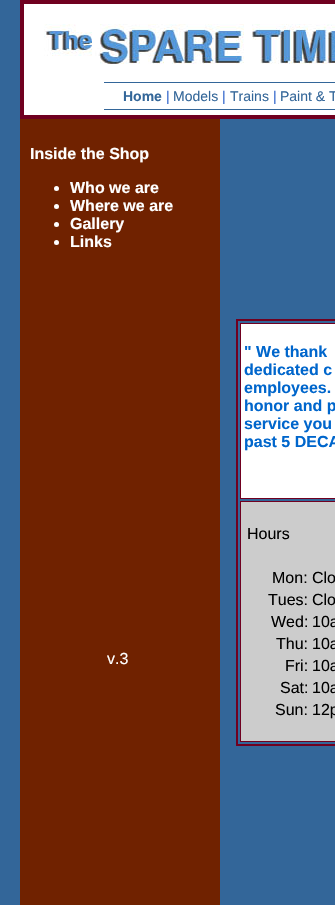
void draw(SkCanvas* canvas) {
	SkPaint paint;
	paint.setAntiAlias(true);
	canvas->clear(0xff336699);
	paint.setColor(0xffffffff);
	canvas->drawRect(SkRect::MakeXYWH(22, 2, 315, 115), paint);
	paint.setStroke(true);
	paint.setStrokeWidth(4);
	paint.setColor(0xff700020);
	canvas->drawRect(SkRect::MakeXYWH(22, 2, 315, 115), paint);
	canvas->drawImageRect(SkImages::DeferredFromEncodedData(SkData::MakeFromFileName("img1.png")), SkRect::MakeXYWH(44, 24, 291, 40), SkSamplingOptions());
	paint.setStroke(false);
	paint.setColor(0xff336699);
	canvas->drawRect(SkRect::MakeXYWH(104, 82, 231, 1), paint);
	canvas->drawRect(SkRect::MakeXYWH(104, 109, 231, 1), paint);
	SkFont f1(fontMgr->matchFamilyStyle("Liberation Sans", SkFontStyle::Bold()), 14);
	f1.setSubpixel(true);
	canvas->drawString("Home", 123, 101, f1, paint);
	SkFont f2(fontMgr->matchFamilyStyle("Liberation Sans", SkFontStyle::Normal()), 14);
	f2.setSubpixel(true);
	paint.setColor(0xff3366cc);
	canvas->drawString("|", 166, 101, f2, paint);
	paint.setColor(0xff336699);
	canvas->drawString("Models", 173, 101, f2, paint);
	paint.setColor(0xff3366cc);
	canvas->drawString("|", 222, 101, f2, paint);
	paint.setColor(0xff336699);
	canvas->drawString("Trains", 230, 101, f2, paint);
	paint.setColor(0xff3366cc);
	canvas->drawString("|", 273, 101, f2, paint);
	paint.setColor(0xff336699);
	canvas->drawString("Paint & T", 280, 101, f2, paint);
	paint.setColor(0xff702200);
	canvas->drawRect(SkRect::MakeXYWH(20, 119, 200, 786), paint);
	SkFont f3(fontMgr->matchFamilyStyle("Liberation Sans", SkFontStyle::Bold()), 16);
	f3.setSubpixel(true);
	paint.setColor(0xffffffff);
	canvas->drawString("Inside the Shop", 30, 159, f3, paint);
	canvas->drawCircle(56.5, 188.5, 2.5, paint);
	canvas->drawString("Who we are", 70, 193, f3, paint);
	canvas->drawCircle(56.5, 206.5, 2.5, paint);
	canvas->drawString("Where we are", 70, 211, f3, paint);
	canvas->drawCircle(56.5, 224.5, 2.5, paint);
	canvas->drawString("Gallery", 70, 229, f3, paint);
	canvas->drawCircle(56.5, 242.5, 2.5, paint);
	canvas->drawString("Links", 70, 247, f3, paint);
	SkFont f4(fontMgr->matchFamilyStyle("Liberation Sans", SkFontStyle::Normal()), 16);
	f4.setSubpixel(true);
	canvas->drawString("v.3", 107, 664, f4, paint);
	paint.setStroke(true);
	paint.setStrokeWidth(2);
	paint.setColor(0xff700020);
	canvas->drawRect(SkRect::MakeXYWH(237, 320, 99, 425), paint);
	paint.setStroke(false);
	paint.setColor(0xffffffff);
	canvas->drawRect(SkRect::MakeXYWH(240.5, 323.5, 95, 175), paint);
	paint.setStroke(true);
	paint.setStrokeWidth(1);
	paint.setColor(0xff700020);
	canvas->drawRect(SkRect::MakeXYWH(240.5, 323.5, 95, 175), paint);
	paint.setStroke(false);
	paint.setColor(0xff0066cc);
	canvas->drawString("\" We thank", 244, 357, f3, paint);
	canvas->drawString("dedicated c", 244, 375, f3, paint);
	canvas->drawString("employees.", 244, 393, f3, paint);
	canvas->drawString("honor and p", 244, 411, f3, paint);
	canvas->drawString("service you", 244, 429, f3, paint);
	canvas->drawString("past 5 DECA", 244, 447, f3, paint);
	paint.setColor(0xffcccccc);
	canvas->drawRect(SkRect::MakeXYWH(240.5, 501.5, 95, 240), paint);
	paint.setStroke(true);
	paint.setColor(0xff700020);
	canvas->drawRect(SkRect::MakeXYWH(240.5, 501.5, 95, 240), paint);
	paint.setStroke(false);
	paint.setColor(0xff000000);
	canvas->drawString("Hours", 247, 539, f4, paint);
	canvas->drawString("Mon:", 272, 583, f4, paint);
	canvas->drawString("Clo", 312, 583, f4, paint);
	canvas->drawString("Tues:", 268, 605, f4, paint);
	canvas->drawString("Clo", 312, 605, f4, paint);
	canvas->drawString("Wed:", 271, 627, f4, paint);
	canvas->drawString("10a", 312, 627, f4, paint);
	canvas->drawString("Thu:", 276, 649, f4, paint);
	canvas->drawString("10a", 312, 649, f4, paint);
	canvas->drawString("Fri:", 285, 671, f4, paint);
	canvas->drawString("10a", 312, 671, f4, paint);
	canvas->drawString("Sat:", 280, 693, f4, paint);
	canvas->drawString("10a", 312, 693, f4, paint);
	canvas->drawString("Sun:", 275, 715, f4, paint);
	canvas->drawString("12p", 312, 715, f4, paint);
}
